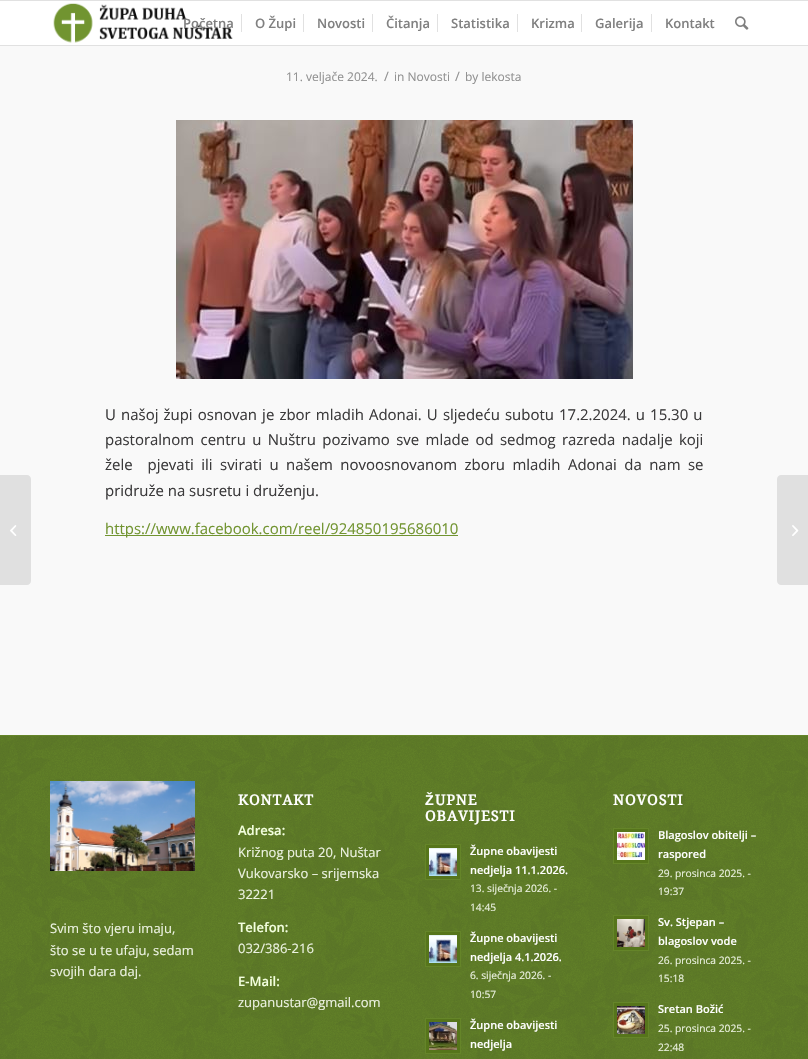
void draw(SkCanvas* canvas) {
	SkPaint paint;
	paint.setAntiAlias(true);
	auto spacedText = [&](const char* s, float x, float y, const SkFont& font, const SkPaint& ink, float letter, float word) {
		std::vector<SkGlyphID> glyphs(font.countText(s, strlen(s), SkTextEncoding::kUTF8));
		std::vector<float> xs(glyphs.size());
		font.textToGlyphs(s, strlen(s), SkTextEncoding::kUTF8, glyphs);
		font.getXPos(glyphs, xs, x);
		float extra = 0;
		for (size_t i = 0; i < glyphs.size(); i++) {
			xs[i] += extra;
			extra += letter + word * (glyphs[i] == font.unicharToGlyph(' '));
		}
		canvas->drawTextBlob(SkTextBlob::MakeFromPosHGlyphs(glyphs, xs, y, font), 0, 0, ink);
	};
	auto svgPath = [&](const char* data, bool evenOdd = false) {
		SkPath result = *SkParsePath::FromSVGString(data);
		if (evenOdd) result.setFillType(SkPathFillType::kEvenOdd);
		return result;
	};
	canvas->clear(0xfff9f9f9);
	paint.setColor(0xffffffff);
	canvas->drawRect(SkRect::MakeXYWH(0, 1, 808, 44), paint);
	paint.setColor(0xffe1e1e1);
	canvas->drawRect(SkRect::MakeXYWH(0, 0, 808, 1), paint);
	canvas->drawRect(SkRect::MakeXYWH(0, 45, 808, 1), paint);
	canvas->drawImageRect(SkImages::DeferredFromEncodedData(SkData::MakeFromFileName("img1.png")), SkRect::MakeXYWH(53, 3, 180, 40), SkSamplingOptions());
	SkFont f1(fontMgr->matchFamilyStyle("Open Sans", SkFontStyle(600, SkFontStyle::kNormal_Width, SkFontStyle::kUpright_Slant)), 13);
	f1.setSubpixel(true);
	paint.setColor(0xff808080);
	canvas->drawString("Početna", 183, 28, f1, paint);
	canvas->drawString("O Župi", 255, 28, f1, paint);
	paint.setColor(0xffe1e1e1);
	canvas->drawRect(SkRect::MakeXYWH(241, 14, 1, 18), paint);
	paint.setColor(0xff808080);
	canvas->drawString("Novosti", 317, 28, f1, paint);
	paint.setColor(0xffe1e1e1);
	canvas->drawRect(SkRect::MakeXYWH(303, 14, 1, 18), paint);
	paint.setColor(0xff808080);
	canvas->drawString("Čitanja", 386, 28, f1, paint);
	paint.setColor(0xffe1e1e1);
	canvas->drawRect(SkRect::MakeXYWH(372, 14, 1, 18), paint);
	paint.setColor(0xff808080);
	canvas->drawString("Statistika", 451, 28, f1, paint);
	paint.setColor(0xffe1e1e1);
	canvas->drawRect(SkRect::MakeXYWH(437, 14, 1, 18), paint);
	paint.setColor(0xff808080);
	canvas->drawString("Krizma", 531, 28, f1, paint);
	paint.setColor(0xffe1e1e1);
	canvas->drawRect(SkRect::MakeXYWH(517, 14, 1, 18), paint);
	paint.setColor(0xff808080);
	canvas->drawString("Galerija", 595, 28, f1, paint);
	paint.setColor(0xffe1e1e1);
	canvas->drawRect(SkRect::MakeXYWH(581, 14, 1, 18), paint);
	paint.setColor(0xff808080);
	canvas->drawString("Kontakt", 665, 28, f1, paint);
	paint.setColor(0xffe1e1e1);
	canvas->drawRect(SkRect::MakeXYWH(651, 14, 1, 18), paint);
	canvas->drawImageRect(SkImages::DeferredFromEncodedData(SkData::MakeFromFileName("img2.png")), SkRect::MakeXYWH(735, 16, 14, 14), SkSamplingOptions());
	paint.setColor(0xffe0e0e0);
	canvas->drawPath(svgPath("M0 475H27C29 475 31 477 31 479V581C31 583 29 585 27 585H0Z"), paint);
	canvas->drawImageRect(SkImages::DeferredFromEncodedData(SkData::MakeFromFileName("img3.png")), SkRect::MakeXYWH(10, 525, 7, 11), SkSamplingOptions());
	SkFont f2(fontMgr->matchFamilyStyle("Open Sans", SkFontStyle::Normal()), 12);
	f2.setSubpixel(true);
	paint.setColor(0xff919191);
	canvas->drawString("11. veljače 2024.", 286, 81, f2, paint);
	SkFont f3(fontMgr->matchFamilyStyle("Open Sans", SkFontStyle::Normal()), 13);
	f3.setSubpixel(true);
	canvas->drawString("/", 384, 81, f3, paint);
	canvas->drawString("in Novosti", 394, 81, f2, paint);
	canvas->drawString("/", 455, 81, f3, paint);
	canvas->drawString("by lekosta", 465, 81, f2, paint);
	canvas->drawImageRect(SkImages::DeferredFromEncodedData(SkData::MakeFromFileName("img4.png")), SkRect::MakeXYWH(176, 120, 457, 259), SkSamplingOptions());
	SkFont f4(fontMgr->matchFamilyStyle("Open Sans", SkFontStyle::Normal()), 14.95);
	f4.setSubpixel(true);
	paint.setColor(0xff3b3a3b);
	spacedText("U našoj župi osnovan je zbor mladih Adonai. U sljedeću subotu 17.2.2024. u 15.30 u", 105, 420, f4, paint, 0, 1.25);
	spacedText("pastoralnom centru u Nuštru pozivamo sve mlade od sedmog razreda nadalje koji", 105, 445, f4, paint, 0, 2.5);
	spacedText("žele  pjevati ili svirati u našem novoosnovanom zboru mladih Adonai da nam se", 105, 470, f4, paint, 0, 3.6);
	canvas->drawString("pridruže na susretu i druženju.", 105, 496, f4, paint);
	paint.setColor(0xff719430);
	canvas->drawRect(SkRect::MakeXYWH(105, 535, 353, 1), paint);
	canvas->drawString("https://www.facebook.com/reel/924850195686010", 105, 534, f4, paint);
	paint.setColor(0xff658529);
	canvas->drawRect(SkRect::MakeXYWH(0, 735, 808, 324), paint);
	canvas->drawImageRect(SkImages::DeferredFromEncodedData(SkData::MakeFromFileName("img5.png")), SkRect::MakeXYWH(0, 736, 808, 323), SkSamplingOptions());
	canvas->drawImageRect(SkImages::DeferredFromEncodedData(SkData::MakeFromFileName("img6.png")), SkRect::MakeXYWH(50, 781, 145, 90), SkSamplingOptions());
	paint.setColor(0xffecf2e1);
	canvas->drawString("Svim što vjeru imaju,", 50, 933, f3, paint);
	canvas->drawString("što se u te ufaju, sedam", 50, 955, f3, paint);
	canvas->drawString("svojih dara daj.", 50, 976, f3, paint);
	SkFont f5(fontMgr->matchFamilyStyle("Droid Serif", SkFontStyle::Bold()), 14.25);
	f5.setSubpixel(true);
	paint.setColor(0xffffffff);
	spacedText("KONTAKT", 238, 805, f5, paint, 1, 0);
	paint.setColor(0xfff3ffde);
	canvas->drawString("Adresa:", 238, 835, f1, paint);
	paint.setColor(0xffecf2e1);
	canvas->drawString("Križnog puta 20, Nuštar", 238, 857, f3, paint);
	canvas->drawString("Vukovarsko – srijemska", 238, 878, f3, paint);
	canvas->drawString("32221", 238, 899, f3, paint);
	paint.setColor(0xfff3ffde);
	canvas->drawString("Telefon:", 238, 932, f1, paint);
	paint.setColor(0xffecf2e1);
	canvas->drawString("032/386-216", 238, 953, f3, paint);
	paint.setColor(0xfff3ffde);
	canvas->drawString("E-Mail:", 238, 986, f1, paint);
	paint.setColor(0xffecf2e1);
	canvas->drawString("zupanustar@gmail.com", 238, 1007, f3, paint);
	SkFont f6(fontMgr->matchFamilyStyle("Liberation Sans", SkFontStyle::Bold()), 14.25);
	f6.setSubpixel(true);
	paint.setColor(0xffffffff);
	spacedText("Ž", 425, 805, f6, paint, 1, 0);
	spacedText("UPNE", 435, 805, f5, paint, 1, 0);
	spacedText("OBAVIJESTI", 425, 821, f5, paint, 1, 0);
	paint.setColor(0xff56751b);
	canvas->drawRect(SkRect::MakeXYWH(425.5, 844.5, 35, 35), paint);
	paint.setStroke(true);
	paint.setStrokeWidth(1);
	paint.setColor(0xff658529);
	canvas->drawRect(SkRect::MakeXYWH(425.5, 844.5, 35, 35), paint);
	canvas->drawImageRect(SkImages::DeferredFromEncodedData(SkData::MakeFromFileName("img7.png")), SkRect::MakeXYWH(429, 848, 28, 28), SkSamplingOptions());
	SkFont f7(fontMgr->matchFamilyStyle("Open Sans", SkFontStyle(600, SkFontStyle::kNormal_Width, SkFontStyle::kUpright_Slant)), 11);
	f7.setSubpixel(true);
	paint.setStroke(false);
	paint.setColor(0xffffffff);
	canvas->drawString("Župne obavijesti", 470, 855, f7, paint);
	canvas->drawString("nedjelja 11.1.2026.", 470, 874, f7, paint);
	SkFont f8(fontMgr->matchFamilyStyle("Open Sans", SkFontStyle::Normal()), 10.25);
	f8.setSubpixel(true);
	paint.setColor(0xffecf2e1);
	canvas->drawString("13. siječnja 2026. -", 470, 892, f8, paint);
	canvas->drawString("14:45", 470, 911, f8, paint);
	paint.setColor(0xff56751b);
	canvas->drawRect(SkRect::MakeXYWH(425.5, 931.5, 35, 35), paint);
	paint.setStroke(true);
	paint.setColor(0xff658529);
	canvas->drawRect(SkRect::MakeXYWH(425.5, 931.5, 35, 35), paint);
	canvas->drawImageRect(SkImages::DeferredFromEncodedData(SkData::MakeFromFileName("img7.png")), SkRect::MakeXYWH(429, 935, 28, 28), SkSamplingOptions());
	paint.setStroke(false);
	paint.setColor(0xffffffff);
	canvas->drawString("Župne obavijesti", 470, 942, f7, paint);
	canvas->drawString("nedjelja 4.1.2026.", 470, 961, f7, paint);
	paint.setColor(0xffecf2e1);
	canvas->drawString("6. siječnja 2026. -", 470, 979, f8, paint);
	canvas->drawString("10:57", 470, 998, f8, paint);
	paint.setColor(0xff56751b);
	canvas->drawRect(SkRect::MakeXYWH(425.5, 1018.5, 35, 35), paint);
	paint.setStroke(true);
	paint.setColor(0xff658529);
	canvas->drawRect(SkRect::MakeXYWH(425.5, 1018.5, 35, 35), paint);
	canvas->drawImageRect(SkImages::DeferredFromEncodedData(SkData::MakeFromFileName("img8.png")), SkRect::MakeXYWH(429, 1022, 28, 28), SkSamplingOptions());
	paint.setStroke(false);
	paint.setColor(0xffffffff);
	canvas->drawString("Župne obavijesti", 470, 1029, f7, paint);
	canvas->drawString("nedjelja", 470, 1048, f7, paint);
	spacedText("NOVOSTI", 613, 805, f5, paint, 1, 0);
	paint.setColor(0xff56751b);
	canvas->drawRect(SkRect::MakeXYWH(613.5, 828.5, 35, 35), paint);
	paint.setStroke(true);
	paint.setColor(0xff658529);
	canvas->drawRect(SkRect::MakeXYWH(613.5, 828.5, 35, 35), paint);
	canvas->drawImageRect(SkImages::DeferredFromEncodedData(SkData::MakeFromFileName("img9.png")), SkRect::MakeXYWH(617, 832, 28, 28), SkSamplingOptions());
	paint.setStroke(false);
	paint.setColor(0xffffffff);
	canvas->drawString("Blagoslov obitelji –", 658, 839, f7, paint);
	canvas->drawString("raspored", 658, 858, f7, paint);
	paint.setColor(0xffecf2e1);
	canvas->drawString("29. prosinca 2025. -", 658, 877, f8, paint);
	canvas->drawString("19:37", 658, 895, f8, paint);
	paint.setColor(0xff56751b);
	canvas->drawRect(SkRect::MakeXYWH(613.5, 915.5, 35, 35), paint);
	paint.setStroke(true);
	paint.setColor(0xff658529);
	canvas->drawRect(SkRect::MakeXYWH(613.5, 915.5, 35, 35), paint);
	canvas->drawImageRect(SkImages::DeferredFromEncodedData(SkData::MakeFromFileName("img10.png")), SkRect::MakeXYWH(617, 919, 28, 28), SkSamplingOptions());
	paint.setStroke(false);
	paint.setColor(0xffffffff);
	canvas->drawString("Sv. Stjepan –", 658, 926, f7, paint);
	canvas->drawString("blagoslov vode", 658, 945, f7, paint);
	paint.setColor(0xffecf2e1);
	canvas->drawString("26. prosinca 2025. -", 658, 964, f8, paint);
	canvas->drawString("15:18", 658, 982, f8, paint);
	paint.setColor(0xff56751b);
	canvas->drawRect(SkRect::MakeXYWH(613.5, 1002.5, 35, 35), paint);
	paint.setStroke(true);
	paint.setColor(0xff658529);
	canvas->drawRect(SkRect::MakeXYWH(613.5, 1002.5, 35, 35), paint);
	canvas->drawImageRect(SkImages::DeferredFromEncodedData(SkData::MakeFromFileName("img11.png")), SkRect::MakeXYWH(617, 1006, 28, 28), SkSamplingOptions());
	paint.setStroke(false);
	paint.setColor(0xffffffff);
	canvas->drawString("Sretan Božić", 658, 1013, f7, paint);
	paint.setColor(0xffecf2e1);
	canvas->drawString("25. prosinca 2025. -", 658, 1032, f8, paint);
	canvas->drawString("22:48", 658, 1051, f8, paint);
	paint.setColor(0xffe0e0e0);
	canvas->drawPath(svgPath("M781 475H808V585H781C779 585 777 583 777 581V479C777 477 779 475 781 475Z"), paint);
	canvas->drawImageRect(SkImages::DeferredFromEncodedData(SkData::MakeFromFileName("img12.png")), SkRect::MakeXYWH(792, 525, 7, 11), SkSamplingOptions());
}
